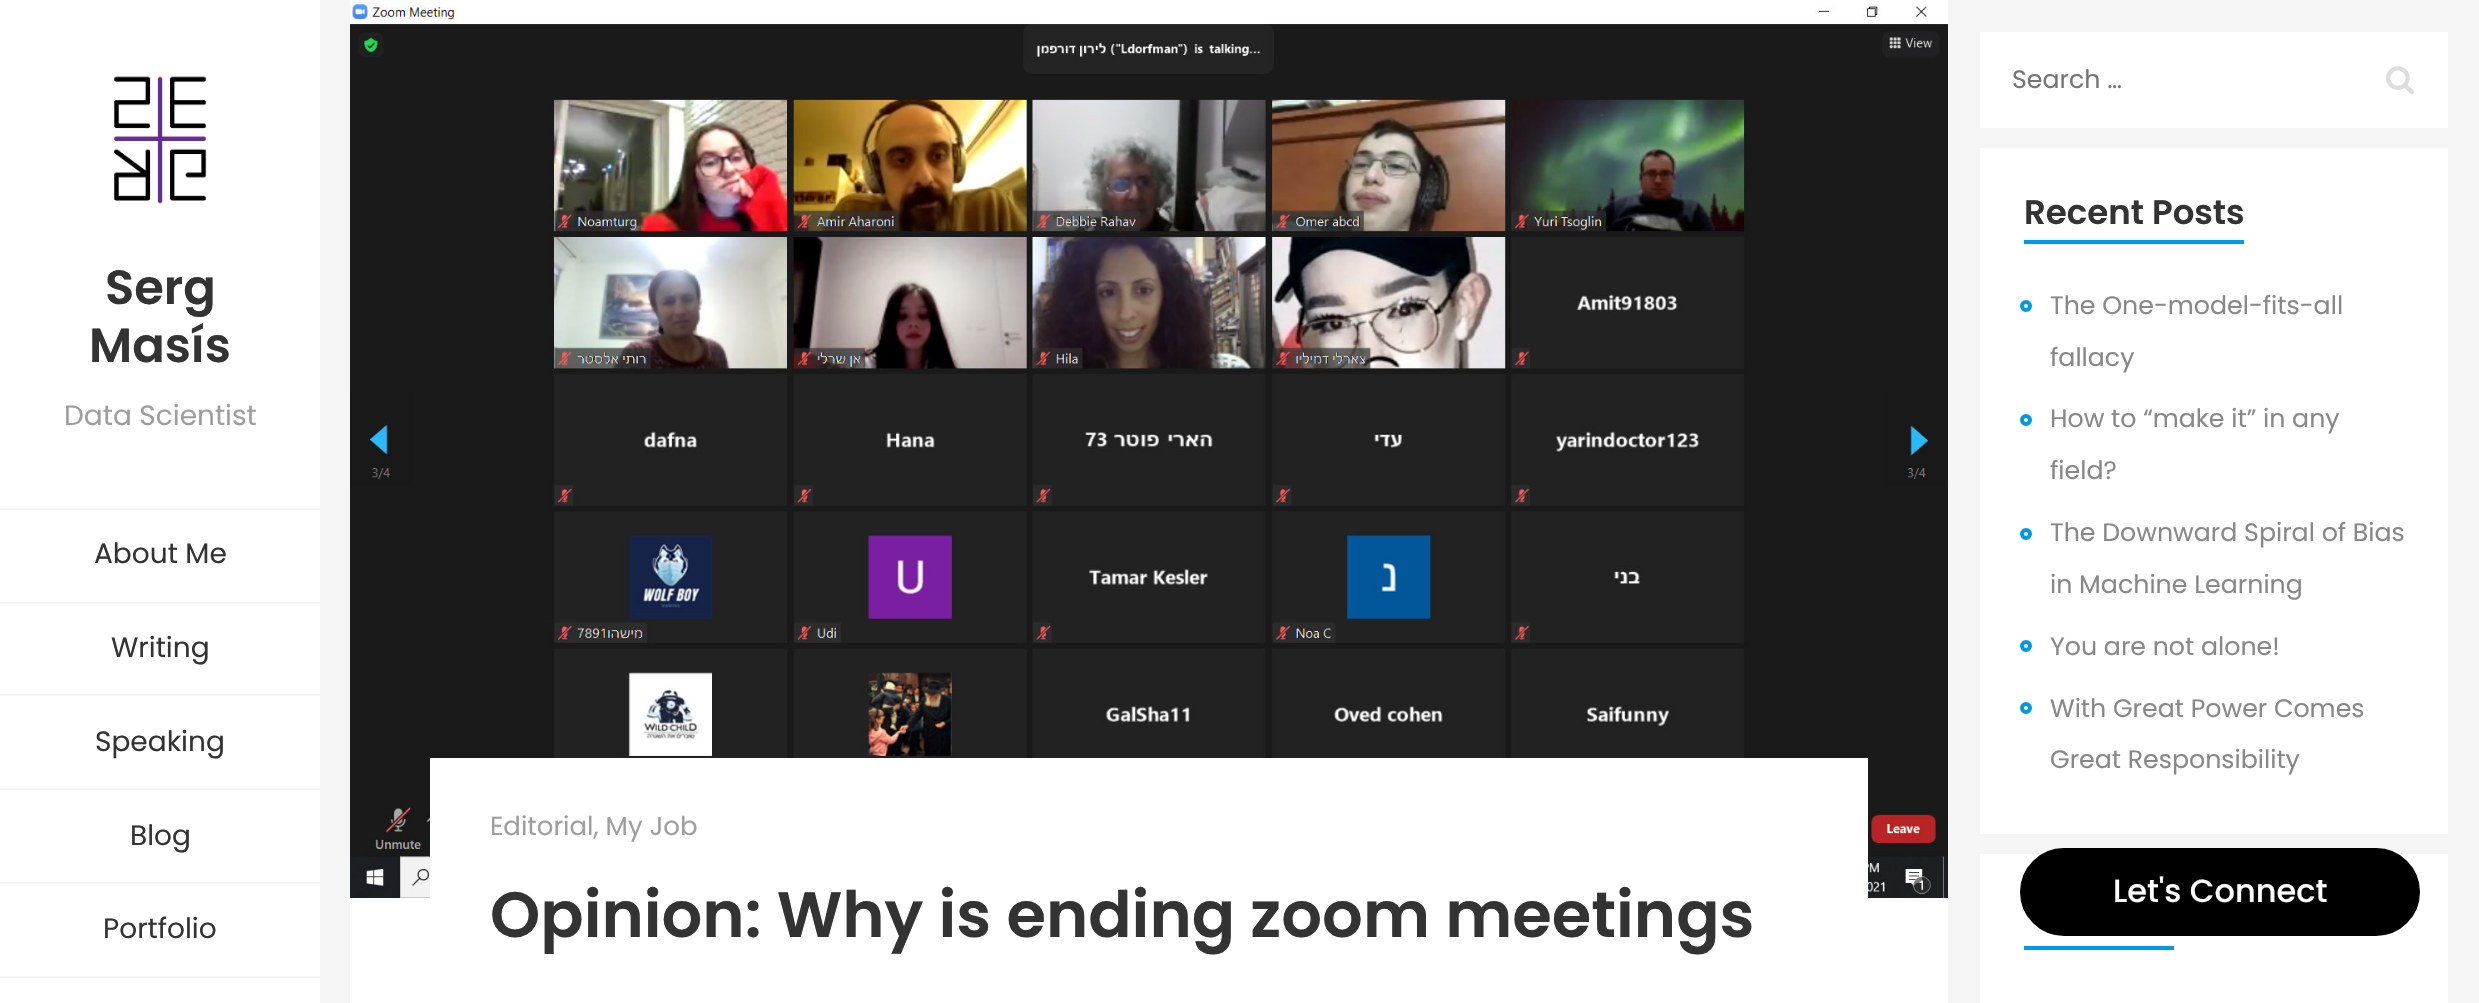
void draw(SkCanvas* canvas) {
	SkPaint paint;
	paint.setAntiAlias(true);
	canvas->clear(0xfff5f5f5);
	paint.setColor(0xffffffff);
	canvas->drawRect(SkRect::MakeXYWH(0, 0, 320, 1003), paint);
	canvas->drawImageRect(SkImages::DeferredFromEncodedData(SkData::MakeFromFileName("img1.png")), SkRect::MakeXYWH(114, 76, 93, 128), SkSamplingOptions());
	SkFont f1(fontMgr->matchFamilyStyle("Poppins", SkFontStyle(600, SkFontStyle::kNormal_Width, SkFontStyle::kUpright_Slant)), 48);
	f1.setSubpixel(true);
	paint.setColor(0xff333333);
	canvas->drawString("Serg", 105, 304, f1, paint);
	canvas->drawString("Masís", 89, 362, f1, paint);
	SkFont f2(fontMgr->matchFamilyStyle("Poppins", SkFontStyle::Normal()), 28);
	f2.setSubpixel(true);
	paint.setColor(0xff9e9e9e);
	canvas->drawString("Data Scientist", 64, 425, f2, paint);
	paint.setColor(0xfff5f5f5);
	canvas->drawRect(SkRect::MakeXYWH(0, 508, 320, 2), paint);
	canvas->drawRect(SkRect::MakeXYWH(0, 602, 320, 2), paint);
	paint.setColor(0xff333333);
	canvas->drawString("About Me", 94, 563, f2, paint);
	paint.setColor(0xfff5f5f5);
	canvas->drawRect(SkRect::MakeXYWH(0, 694, 320, 2), paint);
	paint.setColor(0xff333333);
	canvas->drawString("Writing", 111, 657, f2, paint);
	paint.setColor(0xfff5f5f5);
	canvas->drawRect(SkRect::MakeXYWH(0, 788, 320, 2), paint);
	paint.setColor(0xff333333);
	canvas->drawString("Speaking", 95, 751, f2, paint);
	paint.setColor(0xfff5f5f5);
	canvas->drawRect(SkRect::MakeXYWH(0, 882, 320, 2), paint);
	paint.setColor(0xff333333);
	canvas->drawString("Blog", 130, 845, f2, paint);
	paint.setColor(0xfff5f5f5);
	canvas->drawRect(SkRect::MakeXYWH(0, 976, 320, 2), paint);
	paint.setColor(0xff333333);
	canvas->drawString("Portfolio", 103, 938, f2, paint);
	paint.setColor(0xffffffff);
	canvas->drawRect(SkRect::MakeXYWH(1980, 32, 468, 96), paint);
	SkFont f3(fontMgr->matchFamilyStyle("Poppins", SkFontStyle::Normal()), 25.25);
	f3.setSubpixel(true);
	paint.setColor(0xff757575);
	canvas->drawString("Search …", 2012, 88, f3, paint);
	canvas->drawImageRect(SkImages::DeferredFromEncodedData(SkData::MakeFromFileName("img2.png")), SkRect::MakeXYWH(2386, 66, 28, 29), SkSamplingOptions());
	paint.setColor(0xffffffff);
	canvas->drawRect(SkRect::MakeXYWH(1980, 148, 468, 686), paint);
	SkFont f4(fontMgr->matchFamilyStyle("Poppins", SkFontStyle(600, SkFontStyle::kNormal_Width, SkFontStyle::kUpright_Slant)), 34);
	f4.setSubpixel(true);
	paint.setColor(0xff333333);
	canvas->drawString("Recent Posts", 2024, 224, f4, paint);
	paint.setColor(0xff0099e5);
	canvas->drawRect(SkRect::MakeXYWH(2024, 240, 220, 4), paint);
	paint.setStroke(true);
	paint.setStrokeWidth(4);
	canvas->drawCircle(2026, 306, 4, paint);
	paint.setStroke(false);
	paint.setColor(0xff888888);
	canvas->drawString("The One-model-fits-all", 2050, 314, f3, paint);
	canvas->drawString("fallacy", 2050, 366, f3, paint);
	paint.setStroke(true);
	paint.setColor(0xff0099e5);
	canvas->drawCircle(2026, 420, 4, paint);
	paint.setStroke(false);
	paint.setColor(0xff888888);
	canvas->drawString("How to “make it” in any", 2050, 427, f3, paint);
	canvas->drawString("field?", 2050, 479, f3, paint);
	paint.setStroke(true);
	paint.setColor(0xff0099e5);
	canvas->drawCircle(2026, 534, 4, paint);
	paint.setStroke(false);
	paint.setColor(0xff888888);
	canvas->drawString("The Downward Spiral of Bias", 2050, 541, f3, paint);
	canvas->drawString("in Machine Learning", 2050, 593, f3, paint);
	paint.setStroke(true);
	paint.setColor(0xff0099e5);
	canvas->drawCircle(2026, 646, 4, paint);
	paint.setStroke(false);
	paint.setColor(0xff888888);
	canvas->drawString("You are not alone!", 2050, 655, f3, paint);
	paint.setStroke(true);
	paint.setColor(0xff0099e5);
	canvas->drawCircle(2026, 708, 4, paint);
	paint.setStroke(false);
	paint.setColor(0xff888888);
	canvas->drawString("With Great Power Comes", 2050, 717, f3, paint);
	canvas->drawString("Great Responsibility", 2050, 768, f3, paint);
	paint.setColor(0xffffffff);
	canvas->drawRect(SkRect::MakeXYWH(1980, 854, 468, 149), paint);
	paint.setColor(0xff0099e5);
	canvas->drawRect(SkRect::MakeXYWH(2024, 946, 150, 4), paint);
	paint.setColor(0xffffffff);
	canvas->drawRect(SkRect::MakeXYWH(350, 898, 1598, 105), paint);
	canvas->drawImageRect(SkImages::DeferredFromEncodedData(SkData::MakeFromFileName("img3.png")), SkRect::MakeXYWH(350, 0, 1598, 898), SkSamplingOptions());
	canvas->drawRect(SkRect::MakeXYWH(430, 758, 1438, 140), paint);
	SkFont f5(fontMgr->matchFamilyStyle("Poppins", SkFontStyle::Normal()), 26);
	f5.setSubpixel(true);
	paint.setColor(0xff9e9e9e);
	canvas->drawString("Editorial, My Job", 490, 835, f5, paint);
	SkFont f6(fontMgr->matchFamilyStyle("Poppins", SkFontStyle(600, SkFontStyle::kNormal_Width, SkFontStyle::kUpright_Slant)), 64);
	f6.setSubpixel(true);
	paint.setColor(0xff333333);
	canvas->drawString("Opinion: Why is ending zoom meetings", 490, 937, f6, paint);
	paint.setColor(0xff000000);
	canvas->drawRoundRect(SkRect::MakeXYWH(2021, 849, 398, 86), 43, 43, paint);
	paint.setStroke(true);
	paint.setStrokeWidth(2);
	canvas->drawRoundRect(SkRect::MakeXYWH(2021, 849, 398, 86), 43, 43, paint);
	SkFont f7(fontMgr->matchFamilyStyle("Poppins", SkFontStyle(500, SkFontStyle::kNormal_Width, SkFontStyle::kUpright_Slant)), 32);
	f7.setSubpixel(true);
	paint.setStroke(false);
	paint.setColor(0xffffffff);
	canvas->drawString("Let's Connect", 2113, 902, f7, paint);
}
